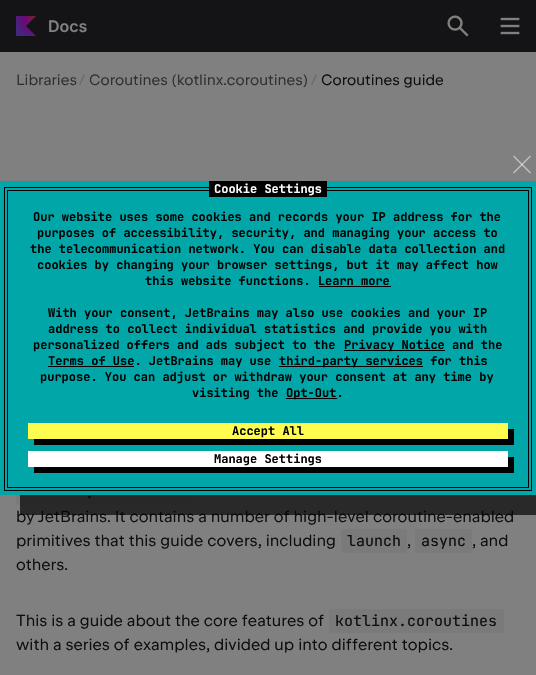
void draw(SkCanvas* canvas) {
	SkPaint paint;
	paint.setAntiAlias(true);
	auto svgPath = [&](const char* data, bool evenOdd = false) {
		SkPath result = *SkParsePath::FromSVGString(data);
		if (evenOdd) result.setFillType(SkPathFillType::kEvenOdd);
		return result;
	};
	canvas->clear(0xff808080);
	paint.setColor(0xff141416);
	canvas->drawRect(SkRect::MakeXYWH(0, 0, 536, 52), paint);
	{
		const SkColor colors[] = {0xff78242c, 0xff690976, 0xff402980};
		const float stops[] = {0, 0.47, 1};
		paint.setShader(SkGradientShader::MakeRadial({35, 17}, 23, colors, stops, 3, SkTileMode::kClamp));
		paint.setAlpha(255);
	}
	canvas->drawPath(svgPath("M36 36H16V16H36L26 26Z"), paint);
	SkFont f1(fontMgr->matchFamilyStyle("Inter", SkFontStyle(600, SkFontStyle::kNormal_Width, SkFontStyle::kUpright_Slant)), 16);
	f1.setSubpixel(true);
	paint.setShader(nullptr);
	paint.setColor(0xff808080);
	canvas->drawString("Docs", 48, 32, f1, paint);
	canvas->drawImageRect(SkImages::DeferredFromEncodedData(SkData::MakeFromFileName("img1.png")), SkRect::MakeXYWH(447, 15, 22, 22), SkSamplingOptions());
	canvas->drawImageRect(SkImages::DeferredFromEncodedData(SkData::MakeFromFileName("img2.png")), SkRect::MakeXYWH(500, 17, 20, 18), SkSamplingOptions());
	SkFont f2(fontMgr->matchFamilyStyle("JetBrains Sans", SkFontStyle::Normal()), 15);
	f2.setSubpixel(true);
	paint.setColor(0xff2f2f30);
	canvas->drawString("Libraries", 16, 85, f2, paint);
	paint.setColor(0xff696969);
	canvas->drawString("/", 79, 85, f2, paint);
	paint.setColor(0xff2f2f30);
	canvas->drawString("Coroutines (kotlinx.coroutines)", 89, 85, f2, paint);
	paint.setColor(0xff696969);
	canvas->drawString("/", 311, 85, f2, paint);
	paint.setColor(0xff0d0d0e);
	canvas->drawString("Coroutines guide", 321, 85, f2, paint);
	paint.setColor(0xff7a7a7a);
	canvas->drawRoundRect(SkRect::MakeXYWH(16, 481, 174, 24), 3, 3, paint);
	SkFont f3(fontMgr->matchFamilyStyle("JetBrains Mono", SkFontStyle::Normal()), 15);
	f3.setSubpixel(true);
	paint.setColor(0xff0d0d0e);
	canvas->drawString(".", 85, 498, f3, paint);
	SkFont f4(fontMgr->matchFamilyStyle("JetBrains Sans", SkFontStyle::Normal()), 16);
	f4.setSubpixel(true);
	canvas->drawString("by JetBrains. It contains a number of high-level coroutine-enabled", 16, 522, f4, paint);
	canvas->drawString("primitives that this guide covers, including", 16, 546, f4, paint);
	paint.setColor(0xff7a7a7a);
	canvas->drawRoundRect(SkRect::MakeXYWH(341, 529, 66, 24), 3, 3, paint);
	paint.setColor(0xff0d0d0e);
	canvas->drawString("launch", 347, 546, f3, paint);
	canvas->drawString(",", 407, 546, f4, paint);
	paint.setColor(0xff7a7a7a);
	canvas->drawRoundRect(SkRect::MakeXYWH(415, 529, 57, 24), 3, 3, paint);
	paint.setColor(0xff0d0d0e);
	canvas->drawString("async", 421, 546, f3, paint);
	canvas->drawString(", and", 472, 546, f4, paint);
	canvas->drawString("others.", 16, 570, f4, paint);
	canvas->drawString("This is a guide about the core features of", 16, 626, f4, paint);
	paint.setColor(0xff7a7a7a);
	canvas->drawRoundRect(SkRect::MakeXYWH(329, 609, 175, 24), 3, 3, paint);
	paint.setColor(0xff0d0d0e);
	canvas->drawString("kotlinx.coroutines", 335, 626, f3, paint);
	canvas->drawString("with a series of examples, divided up into different topics.", 16, 650, f4, paint);
	paint.setColor(0xad000000);
	canvas->drawPath(svgPath("M20 495V515H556V201H536V495Z"), paint);
	paint.setColor(0xff01a7a8);
	canvas->drawRect(SkRect::MakeXYWH(0, 181, 536, 314), paint);
	paint.setColor(0xffbfbfbf);
	canvas->drawPath(svgPath("M513 172.5L530 155.5L531 156.5L514 173.5Z"), paint);
	paint.setColor(0x80ffffff);
	canvas->drawPath(svgPath("M514 155.5L531 172.5L530 173.5L513 156.5Z"), paint);
	paint.setColor(0xff000000);
	canvas->drawRect(SkRect::MakeXYWH(7, 190, 522, 1), paint);
	canvas->drawRect(SkRect::MakeXYWH(528, 190, 1, 298), paint);
	canvas->drawRect(SkRect::MakeXYWH(7, 190, 1, 233), paint);
	canvas->drawRect(SkRect::MakeXYWH(4, 187, 528, 1), paint);
	canvas->drawRect(SkRect::MakeXYWH(209, 181, 118, 16), paint);
	SkFont f5(fontMgr->matchFamilyStyle("JetBrains Mono", SkFontStyle::Bold()), 12);
	f5.setSubpixel(true);
	paint.setColor(0xffffffff);
	canvas->drawString("Cookie Settings", 214, 193, f5, paint);
	paint.setColor(0xff000000);
	canvas->drawRect(SkRect::MakeXYWH(531, 187, 1, 304), paint);
	canvas->drawRect(SkRect::MakeXYWH(4, 187, 1, 235), paint);
	canvas->drawString("Our website uses some cookies and records your IP address for the", 33, 221, f5, paint);
	canvas->drawString("purposes of accessibility, security, and managing your access to", 37, 237, f5, paint);
	canvas->drawString("the telecommunication network. You can disable data collection and", 30, 253, f5, paint);
	canvas->drawString("cookies by changing your browser settings, but it may affect how", 37, 269, f5, paint);
	canvas->drawString("this website functions. Learn more", 145, 285, f5, paint);
	canvas->drawRect(SkRect::MakeXYWH(319, 286, 72, 1), paint);
	canvas->drawString("With your consent, JetBrains may also use cookies and your IP", 48, 317, f5, paint);
	canvas->drawString("address to collect individual statistics and provide you with", 48, 333, f5, paint);
	canvas->drawString("personalized offers and ads subject to the", 33, 349, f5, paint);
	canvas->drawRect(SkRect::MakeXYWH(344, 350, 101, 1), paint);
	canvas->drawString("Privacy Notice and the", 344, 349, f5, paint);
	canvas->drawRect(SkRect::MakeXYWH(48, 366, 86, 1), paint);
	canvas->drawString("Terms of Use. JetBrains may use", 48, 365, f5, paint);
	canvas->drawRect(SkRect::MakeXYWH(279, 366, 144, 1), paint);
	canvas->drawString("third-party services for this", 279, 365, f5, paint);
	canvas->drawString("purpose. You can adjust or withdraw your consent at any time by", 40, 381, f5, paint);
	canvas->drawString("visiting the", 192, 397, f5, paint);
	canvas->drawRect(SkRect::MakeXYWH(286, 398, 51, 1), paint);
	canvas->drawString("Opt-Out.", 286, 397, f5, paint);
	canvas->drawRect(SkRect::MakeXYWH(7, 487, 522, 1), paint);
	canvas->drawRect(SkRect::MakeXYWH(7, 423, 1, 65), paint);
	canvas->drawRect(SkRect::MakeXYWH(4, 490, 528, 1), paint);
	canvas->drawRect(SkRect::MakeXYWH(4, 422, 1, 69), paint);
	canvas->drawPath(svgPath("M34 439V445H514V429H508V439Z"), paint);
	paint.setColor(0xfffefc4f);
	canvas->drawRect(SkRect::MakeXYWH(28, 423, 480, 16), paint);
	paint.setColor(0xff000000);
	canvas->drawString("Accept All", 232, 435, f5, paint);
	canvas->drawPath(svgPath("M34 467V473H514V457H508V467Z"), paint);
	paint.setColor(0xffffffff);
	canvas->drawRect(SkRect::MakeXYWH(28, 451, 480, 16), paint);
	paint.setColor(0xff000000);
	canvas->drawString("Manage Settings", 214, 463, f5, paint);
}
